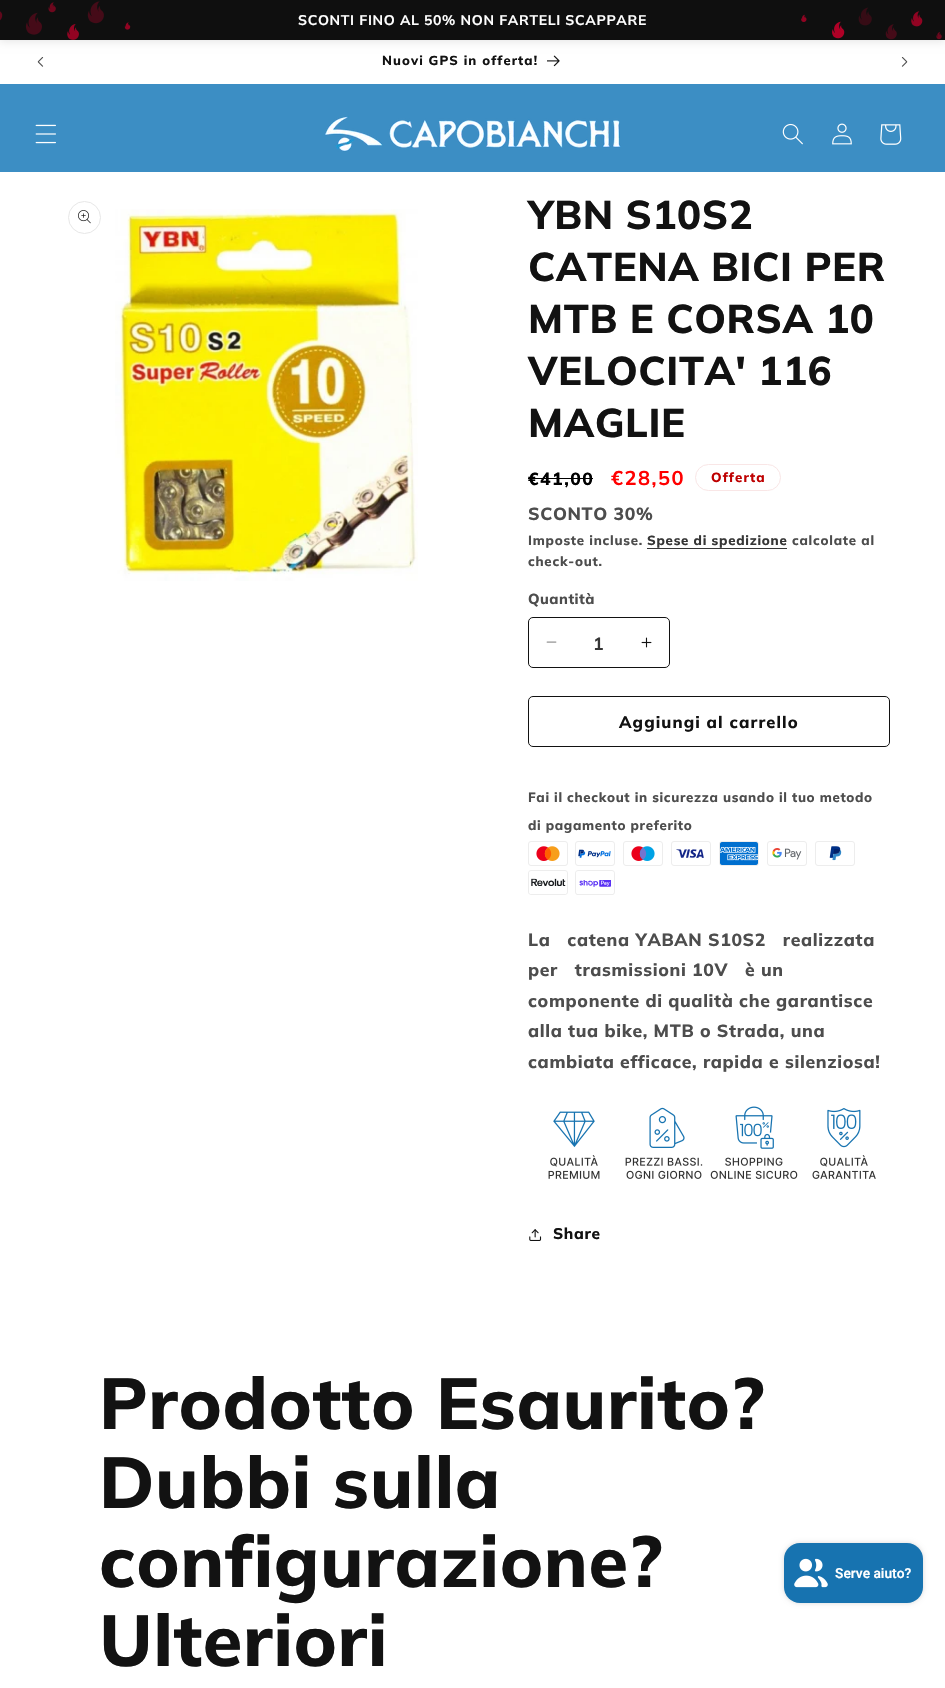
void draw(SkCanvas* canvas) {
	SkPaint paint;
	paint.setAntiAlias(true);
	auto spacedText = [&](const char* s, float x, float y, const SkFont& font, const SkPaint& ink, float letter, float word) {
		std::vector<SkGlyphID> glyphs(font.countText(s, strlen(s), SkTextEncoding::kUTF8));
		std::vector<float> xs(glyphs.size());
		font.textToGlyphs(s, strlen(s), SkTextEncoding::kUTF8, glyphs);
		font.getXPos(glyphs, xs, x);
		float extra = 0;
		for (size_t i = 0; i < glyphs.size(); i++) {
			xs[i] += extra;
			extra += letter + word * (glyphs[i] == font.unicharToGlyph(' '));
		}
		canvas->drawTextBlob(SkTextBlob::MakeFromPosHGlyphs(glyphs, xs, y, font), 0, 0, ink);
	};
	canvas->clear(0xffffffff);
	canvas->drawImageRect(SkImages::DeferredFromEncodedData(SkData::MakeFromFileName("img3.png")), SkRect::MakeXYWH(547, 55, 13, 12), SkSamplingOptions());
	paint.setColor(0x1c000000);
	paint.setMaskFilter(SkMaskFilter::MakeBlur(kNormal_SkBlurStyle, 4.5));
	canvas->drawRect(SkRect::MakeXYWH(-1, -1, 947, 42), paint);
	paint.setMaskFilter(nullptr);
	paint.setColor(0xff0f0f0f);
	canvas->drawRect(SkRect::MakeXYWH(0, 0, 945, 40), paint);
	canvas->drawImageRect(SkImages::DeferredFromEncodedData(SkData::MakeFromFileName("img1.png")), SkRect::MakeXYWH(0, 1, 942, 39), SkSamplingOptions());
	SkFont f1(fontMgr->matchFamilyStyle("Muli", SkFontStyle::Bold()), 14);
	f1.setSubpixel(true);
	paint.setColor(0xffffffff);
	spacedText("SCONTI FINO AL 50% NON FARTELI SCAPPARE", 298, 25, f1, paint, 0.65, 0);
	canvas->drawImageRect(SkImages::DeferredFromEncodedData(SkData::MakeFromFileName("img2.png")), SkRect::MakeXYWH(37, 57, 7, 10), SkSamplingOptions());
	SkFont f2(fontMgr->matchFamilyStyle("Muli", SkFontStyle(800, SkFontStyle::kNormal_Width, SkFontStyle::kUpright_Slant)), 13);
	f2.setSubpixel(true);
	paint.setColor(0xff121212);
	spacedText("Nuovi GPS in offerta!", 382, 65, f2, paint, 1.1, 0);
	canvas->drawImageRect(SkImages::DeferredFromEncodedData(SkData::MakeFromFileName("img4.png")), SkRect::MakeXYWH(901, 57, 7, 10), SkSamplingOptions());
	paint.setColor(0xff3c8ec4);
	canvas->drawRect(SkRect::MakeXYWH(0, 84, 945, 88), paint);
	canvas->drawImageRect(SkImages::DeferredFromEncodedData(SkData::MakeFromFileName("img5.png")), SkRect::MakeXYWH(35, 124, 21, 20), SkSamplingOptions());
	canvas->drawImageRect(SkImages::DeferredFromEncodedData(SkData::MakeFromFileName("img6.png")), SkRect::MakeXYWH(325, 116, 296, 36), SkSamplingOptions());
	canvas->drawImageRect(SkImages::DeferredFromEncodedData(SkData::MakeFromFileName("img7.png")), SkRect::MakeXYWH(782, 123, 21, 22), SkSamplingOptions());
	canvas->drawImageRect(SkImages::DeferredFromEncodedData(SkData::MakeFromFileName("img8.png")), SkRect::MakeXYWH(832, 123, 20, 22), SkSamplingOptions());
	canvas->drawImageRect(SkImages::DeferredFromEncodedData(SkData::MakeFromFileName("img9.png")), SkRect::MakeXYWH(880, 124, 22, 21), SkSamplingOptions());
	paint.setStroke(true);
	paint.setStrokeWidth(1);
	paint.setColor(0xffe7e7e7);
	canvas->drawCircle(84.5, 217.5, 16, paint);
	canvas->drawImageRect(SkImages::DeferredFromEncodedData(SkData::MakeFromFileName("img10.png")), SkRect::MakeXYWH(78, 210, 13, 14), SkSamplingOptions());
	canvas->drawImageRect(SkImages::DeferredFromEncodedData(SkData::MakeFromFileName("img11.png")), SkRect::MakeXYWH(115, 209, 303, 372), SkSamplingOptions());
	SkFont f3(fontMgr->matchFamilyStyle("Muli", SkFontStyle(800, SkFontStyle::kNormal_Width, SkFontStyle::kUpright_Slant)), 40);
	f3.setSubpixel(true);
	paint.setStroke(false);
	paint.setColor(0xff121212);
	spacedText("YBN S10S2", 528, 229, f3, paint, 0.6, 0);
	spacedText("CATENA BICI PER", 528, 281, f3, paint, 0.6, 0);
	spacedText("MTB E CORSA 10", 528, 333, f3, paint, 0.6, 0);
	spacedText("VELOCITA' 116", 528, 385, f3, paint, 0.6, 0);
	spacedText("MAGLIE", 528, 437, f3, paint, 0.6, 0);
	SkFont f4(fontMgr->matchFamilyStyle("Muli", SkFontStyle(800, SkFontStyle::kNormal_Width, SkFontStyle::kUpright_Slant)), 17.6);
	f4.setSubpixel(true);
	paint.setColor(0xff000000);
	spacedText("€41,00", 528, 485, f4, paint, 1.5, 0);
	canvas->drawRect(SkRect::MakeXYWH(528, 478, 65, 1), paint);
	SkFont f5(fontMgr->matchFamilyStyle("Muli", SkFontStyle::Bold()), 20);
	f5.setSubpixel(true);
	paint.setColor(0xffff0000);
	spacedText("€28,50", 611, 485, f5, paint, 1.5, 0);
	paint.setStroke(true);
	paint.setColor(0xfff9e6e6);
	canvas->drawRoundRect(SkRect::MakeXYWH(695.5, 464.5, 85, 26), 13, 13, paint);
	SkFont f6(fontMgr->matchFamilyStyle("Muli", SkFontStyle(800, SkFontStyle::kNormal_Width, SkFontStyle::kUpright_Slant)), 13.25);
	f6.setSubpixel(true);
	paint.setStroke(false);
	paint.setColor(0xffbe0000);
	spacedText("Offerta", 711, 482, f6, paint, 1.1, 0);
	paint.setColor(0xff4d4d4d);
	spacedText("SCONTO 30%", 528, 520, f4, paint, 0.65, 0);
	spacedText("Imposte incluse.", 528, 545, f6, paint, 0.75, 0);
	paint.setColor(0xff363636);
	spacedText("Spese di spedizione", 647, 545, f6, paint, 0.75, 0);
	canvas->drawRect(SkRect::MakeXYWH(647, 548, 140, 1), paint);
	paint.setColor(0xff4d4d4d);
	spacedText("calcolate al", 792, 545, f6, paint, 0.75, 0);
	spacedText("check-out.", 528, 566, f6, paint, 0.75, 0);
	SkFont f7(fontMgr->matchFamilyStyle("Muli", SkFontStyle(800, SkFontStyle::kNormal_Width, SkFontStyle::kUpright_Slant)), 14.5);
	f7.setSubpixel(true);
	spacedText("Quantità", 528, 604, f7, paint, 0.5, 0);
	canvas->drawImageRect(SkImages::DeferredFromEncodedData(SkData::MakeFromFileName("img12.png")), SkRect::MakeXYWH(546, 641, 11, 2), SkSamplingOptions());
	canvas->drawImageRect(SkImages::DeferredFromEncodedData(SkData::MakeFromFileName("img13.png")), SkRect::MakeXYWH(641, 637, 11, 11), SkSamplingOptions());
	paint.setStroke(true);
	paint.setColor(0xff121212);
	canvas->drawRoundRect(SkRect::MakeXYWH(528.5, 617.5, 141, 50), 4.5, 4.5, paint);
	SkFont f8(fontMgr->matchFamilyStyle("Muli", SkFontStyle::Bold()), 17.6);
	f8.setSubpixel(true);
	paint.setStroke(false);
	paint.setColor(0xff363636);
	canvas->drawString("1", 593, 650, f8, paint);
	paint.setStroke(true);
	paint.setColor(0xff121212);
	canvas->drawRoundRect(SkRect::MakeXYWH(528.5, 696.5, 361, 50), 4.5, 4.5, paint);
	SkFont f9(fontMgr->matchFamilyStyle("Muli", SkFontStyle(800, SkFontStyle::kNormal_Width, SkFontStyle::kUpright_Slant)), 16.5);
	f9.setSubpixel(true);
	paint.setStroke(false);
	spacedText("Aggiungi al carrello", 619, 728, f9, paint, 1.1, 0);
	SkFont f10(fontMgr->matchFamilyStyle("Muli", SkFontStyle(800, SkFontStyle::kNormal_Width, SkFontStyle::kUpright_Slant)), 13.3);
	f10.setSubpixel(true);
	paint.setColor(0xff4d4d4d);
	spacedText("Fai il checkout in sicurezza usando il tuo metodo", 528, 802, f10, paint, 0.65, 0);
	spacedText("di pagamento preferito", 528, 830, f10, paint, 0.65, 0);
	canvas->drawImageRect(SkImages::DeferredFromEncodedData(SkData::MakeFromFileName("img14.png")), SkRect::MakeXYWH(528, 841, 40, 25), SkSamplingOptions());
	canvas->drawImageRect(SkImages::DeferredFromEncodedData(SkData::MakeFromFileName("img15.png")), SkRect::MakeXYWH(575, 841, 40, 25), SkSamplingOptions());
	canvas->drawImageRect(SkImages::DeferredFromEncodedData(SkData::MakeFromFileName("img16.png")), SkRect::MakeXYWH(623, 841, 40, 25), SkSamplingOptions());
	canvas->drawImageRect(SkImages::DeferredFromEncodedData(SkData::MakeFromFileName("img17.png")), SkRect::MakeXYWH(671, 841, 40, 25), SkSamplingOptions());
	canvas->drawImageRect(SkImages::DeferredFromEncodedData(SkData::MakeFromFileName("img18.png")), SkRect::MakeXYWH(719, 841, 40, 25), SkSamplingOptions());
	canvas->drawImageRect(SkImages::DeferredFromEncodedData(SkData::MakeFromFileName("img19.png")), SkRect::MakeXYWH(767, 841, 40, 25), SkSamplingOptions());
	canvas->drawImageRect(SkImages::DeferredFromEncodedData(SkData::MakeFromFileName("img20.png")), SkRect::MakeXYWH(815, 841, 40, 25), SkSamplingOptions());
	canvas->drawImageRect(SkImages::DeferredFromEncodedData(SkData::MakeFromFileName("img21.png")), SkRect::MakeXYWH(528, 870, 40, 25), SkSamplingOptions());
	canvas->drawImageRect(SkImages::DeferredFromEncodedData(SkData::MakeFromFileName("img22.png")), SkRect::MakeXYWH(575, 870, 40, 25), SkSamplingOptions());
	spacedText("La   catena YABAN S10S2   realizzata", 528, 946, f4, paint, 0.65, 0);
	spacedText("per   trasmissioni 10V   è un", 528, 976, f4, paint, 0.65, 0);
	spacedText("componente di qualità che garantisce", 528, 1007, f4, paint, 0.65, 0);
	spacedText("alla tua bike, MTB o Strada, una", 528, 1037, f4, paint, 0.65, 0);
	spacedText("cambiata efficace, rapida e silenziosa!", 528, 1068, f4, paint, 0.65, 0);
	canvas->drawImageRect(SkImages::DeferredFromEncodedData(SkData::MakeFromFileName("img23.png")), SkRect::MakeXYWH(548, 1111, 52, 68), SkSamplingOptions());
	canvas->drawImageRect(SkImages::DeferredFromEncodedData(SkData::MakeFromFileName("img24.png")), SkRect::MakeXYWH(625, 1107, 78, 72), SkSamplingOptions());
	canvas->drawImageRect(SkImages::DeferredFromEncodedData(SkData::MakeFromFileName("img25.png")), SkRect::MakeXYWH(710, 1106, 88, 73), SkSamplingOptions());
	canvas->drawImageRect(SkImages::DeferredFromEncodedData(SkData::MakeFromFileName("img26.png")), SkRect::MakeXYWH(812, 1108, 64, 71), SkSamplingOptions());
	canvas->drawImageRect(SkImages::DeferredFromEncodedData(SkData::MakeFromFileName("img27.png")), SkRect::MakeXYWH(529, 1229, 13, 12), SkSamplingOptions());
	SkFont f11(fontMgr->matchFamilyStyle("Muli", SkFontStyle(800, SkFontStyle::kNormal_Width, SkFontStyle::kUpright_Slant)), 15.5);
	f11.setSubpixel(true);
	paint.setColor(0xff121212);
	spacedText("Share", 553, 1239, f11, paint, 0.65, 0);
	SkFont f12(fontMgr->matchFamilyStyle("Muli", SkFontStyle(800, SkFontStyle::kNormal_Width, SkFontStyle::kUpright_Slant)), 72);
	f12.setSubpixel(true);
	spacedText("Prodotto Esaurito?", 99, 1429, f12, paint, 0.6, 0);
	spacedText("Dubbi sulla", 99, 1508, f12, paint, 0.6, 0);
	spacedText("configurazione?", 99, 1587, f12, paint, 0.6, 0);
	spacedText("Ulteriori", 99, 1666, f12, paint, 0.6, 0);
	paint.setColor(0x26000000);
	paint.setMaskFilter(SkMaskFilter::MakeBlur(kNormal_SkBlurStyle, 2.5));
	canvas->drawRoundRect(SkRect::MakeXYWH(784, 1543, 139, 60), 16, 16, paint);
	paint.setMaskFilter(nullptr);
	paint.setColor(0xff1773b0);
	canvas->drawRoundRect(SkRect::MakeXYWH(784, 1543, 139, 60), 16, 16, paint);
	canvas->drawImageRect(SkImages::DeferredFromEncodedData(SkData::MakeFromFileName("img28.png")), SkRect::MakeXYWH(794, 1558, 34, 30), SkSamplingOptions());
	SkFont f13(fontMgr->matchFamilyStyle("Roboto", SkFontStyle(600, SkFontStyle::kNormal_Width, SkFontStyle::kUpright_Slant)), 13.75);
	f13.setSubpixel(true);
	paint.setColor(0xffffffff);
	canvas->drawString("Serve aiuto?", 835, 1578, f13, paint);
}
